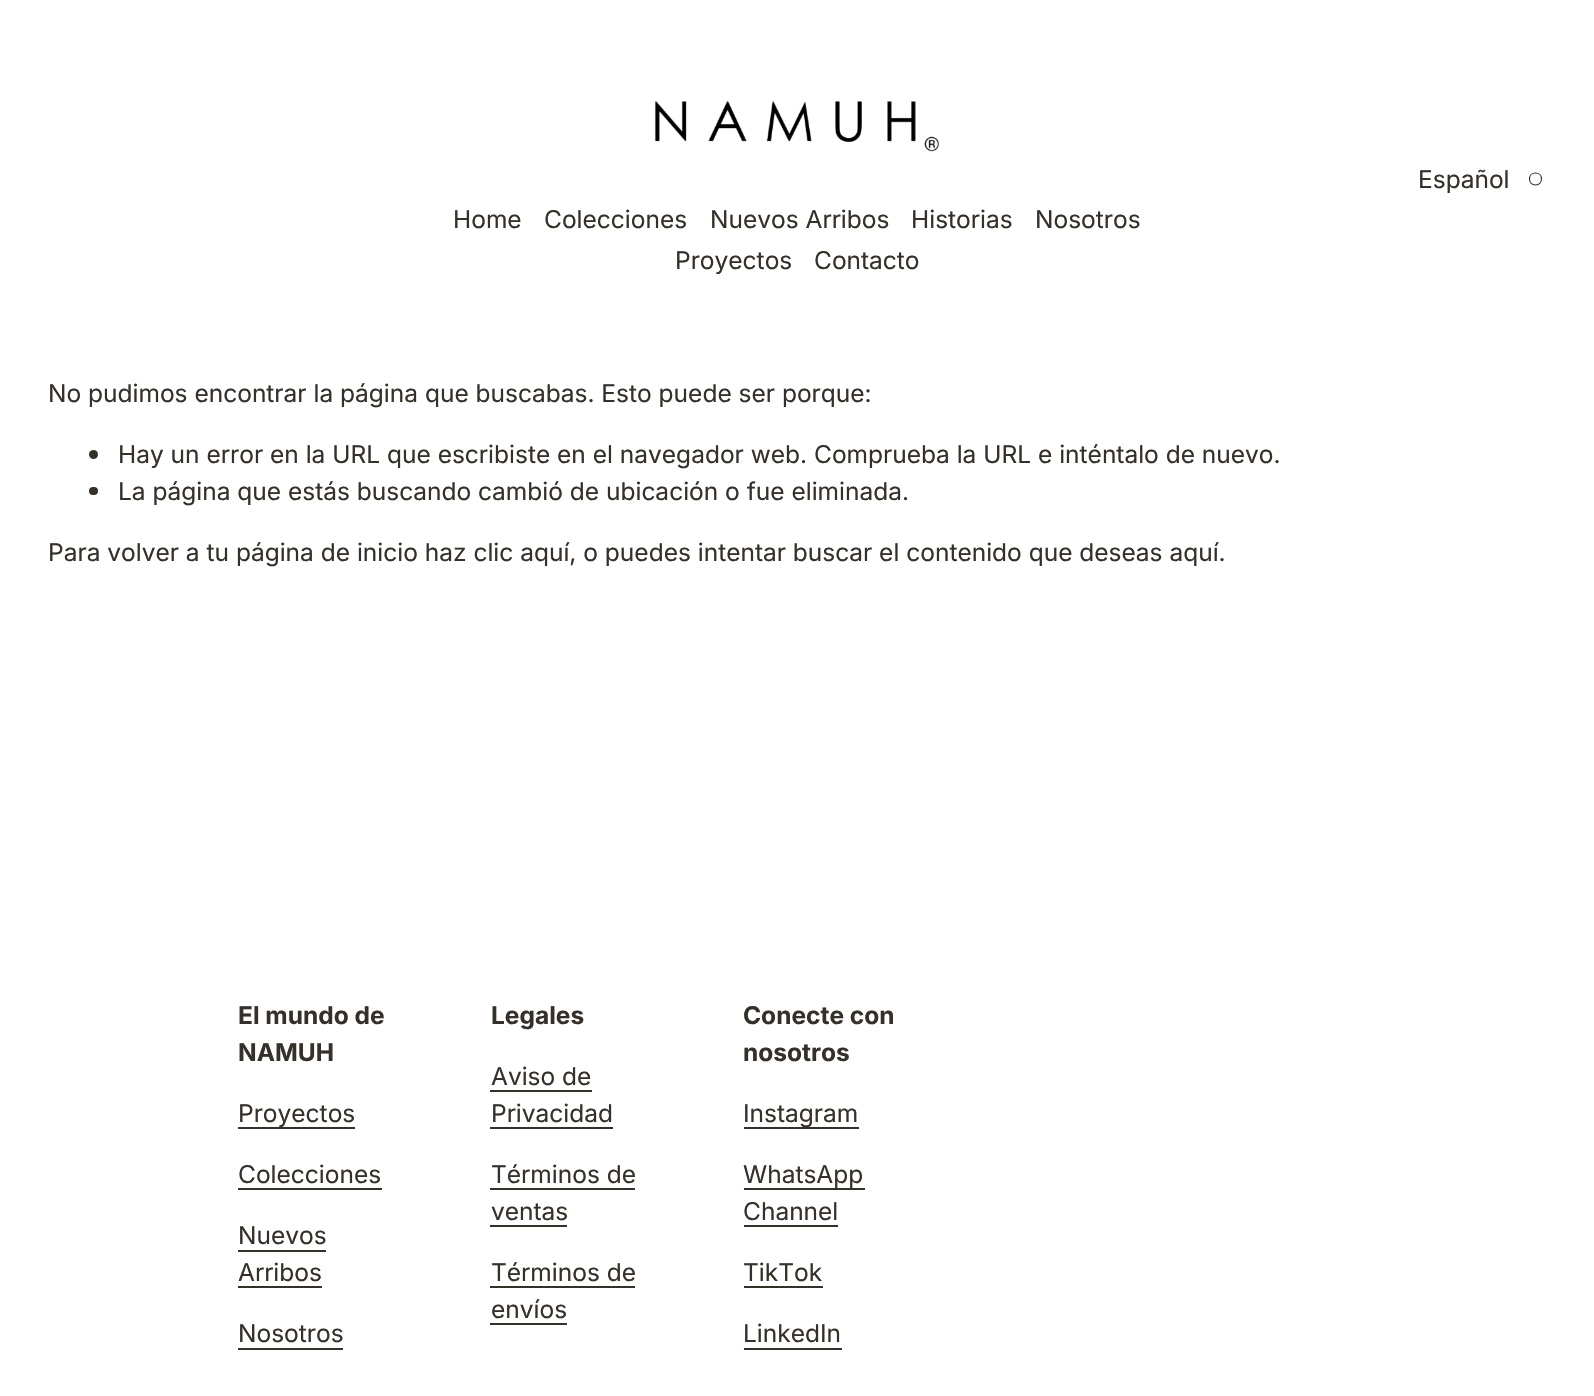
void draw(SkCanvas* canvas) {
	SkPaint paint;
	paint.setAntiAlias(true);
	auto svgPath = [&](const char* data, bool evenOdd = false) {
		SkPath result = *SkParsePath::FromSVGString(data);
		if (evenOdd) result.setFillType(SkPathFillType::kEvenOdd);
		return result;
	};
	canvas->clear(0xffffffff);
	SkFont f1(fontMgr->matchFamilyStyle("Inter", SkFontStyle::Normal()), 24.5);
	f1.setSubpixel(true);
	paint.setColor(0xff36302a);
	canvas->drawString("Español", 1418, 188, f1, paint);
	paint.setStroke(true);
	paint.setStrokeWidth(1.1);
	paint.setStrokeCap(SkPaint::kSquare_Cap);
	canvas->drawPath(svgPath("M1535.5 185C1543.5 185 1543.5 173 1535.5 173C1527.5 173 1527.5 185 1535.5 185Z"), paint);
	canvas->drawImageRect(SkImages::DeferredFromEncodedData(SkData::MakeFromFileName("img1.png")), SkRect::MakeXYWH(654, 101, 285, 51), SkSamplingOptions());
	paint.setStroke(false);
	canvas->drawString("Home", 453, 228, f1, paint);
	canvas->drawString("Colecciones", 544, 228, f1, paint);
	canvas->drawString("Nuevos Arribos", 710, 228, f1, paint);
	canvas->drawString("Historias", 911, 228, f1, paint);
	canvas->drawString("Nosotros", 1035, 228, f1, paint);
	canvas->drawString("Proyectos", 675, 269, f1, paint);
	canvas->drawString("Contacto", 814, 269, f1, paint);
	canvas->drawString("No pudimos encontrar la página que buscabas. Esto puede ser porque:", 48, 402, f1, paint);
	canvas->drawCircle(93.5, 454.5, 4.5, paint);
	canvas->drawString("Hay un error en la URL que escribiste en el navegador web. Comprueba la URL e inténtalo de nuevo.", 118, 463, f1, paint);
	canvas->drawRoundRect(SkRect::MakeXYWH(89, 487, 9, 8), 4, 4, paint);
	canvas->drawString("La página que estás buscando cambió de ubicación o fue eliminada.", 118, 500, f1, paint);
	canvas->drawString("Para volver a tu página de inicio haz clic aquí, o puedes intentar buscar el contenido que deseas aquí.", 48, 561, f1, paint);
	SkFont f2(fontMgr->matchFamilyStyle("Inter", SkFontStyle::Bold()), 24.5);
	f2.setSubpixel(true);
	canvas->drawString("El mundo de", 238, 1024, f2, paint);
	canvas->drawString("NAMUH", 238, 1061, f2, paint);
	canvas->drawRect(SkRect::MakeXYWH(238, 1127, 117, 2), paint);
	canvas->drawString("Proyectos", 238, 1122, f1, paint);
	canvas->drawString("Colecciones", 238, 1183, f1, paint);
	canvas->drawRect(SkRect::MakeXYWH(238, 1188, 144, 2), paint);
	canvas->drawString("Nuevos", 238, 1244, f1, paint);
	canvas->drawRect(SkRect::MakeXYWH(238, 1250, 88, 2), paint);
	canvas->drawString("Arribos", 238, 1281, f1, paint);
	canvas->drawRect(SkRect::MakeXYWH(238, 1286, 84, 2), paint);
	canvas->drawString("Nosotros", 238, 1342, f1, paint);
	canvas->drawRect(SkRect::MakeXYWH(238, 1348, 105, 2), paint);
	canvas->drawString("Legales", 491, 1024, f2, paint);
	canvas->drawString("Aviso de", 491, 1085, f1, paint);
	canvas->drawRect(SkRect::MakeXYWH(490, 1090, 102, 2), paint);
	canvas->drawString("Privacidad", 491, 1122, f1, paint);
	canvas->drawRect(SkRect::MakeXYWH(490, 1127, 123, 2), paint);
	canvas->drawString("Términos de", 491, 1183, f1, paint);
	canvas->drawRect(SkRect::MakeXYWH(490, 1188, 145, 2), paint);
	canvas->drawString("ventas", 491, 1220, f1, paint);
	canvas->drawRect(SkRect::MakeXYWH(490, 1225, 77, 2), paint);
	canvas->drawString("Términos de", 491, 1281, f1, paint);
	canvas->drawRect(SkRect::MakeXYWH(490, 1286, 145, 2), paint);
	canvas->drawString("envíos", 491, 1318, f1, paint);
	canvas->drawRect(SkRect::MakeXYWH(490, 1323, 77, 2), paint);
	canvas->drawString("Conecte con", 743, 1024, f2, paint);
	canvas->drawString("nosotros", 743, 1061, f2, paint);
	canvas->drawRect(SkRect::MakeXYWH(744, 1127, 115, 2), paint);
	canvas->drawString("Instagram", 743, 1122, f1, paint);
	canvas->drawString("WhatsApp", 743, 1183, f1, paint);
	canvas->drawRect(SkRect::MakeXYWH(744, 1188, 121, 2), paint);
	canvas->drawString("Channel", 743, 1220, f1, paint);
	canvas->drawRect(SkRect::MakeXYWH(744, 1225, 94, 2), paint);
	canvas->drawString("TikTok", 743, 1281, f1, paint);
	canvas->drawRect(SkRect::MakeXYWH(744, 1286, 79, 2), paint);
	canvas->drawString("LinkedIn", 743, 1342, f1, paint);
	canvas->drawRect(SkRect::MakeXYWH(744, 1348, 98, 2), paint);
}
